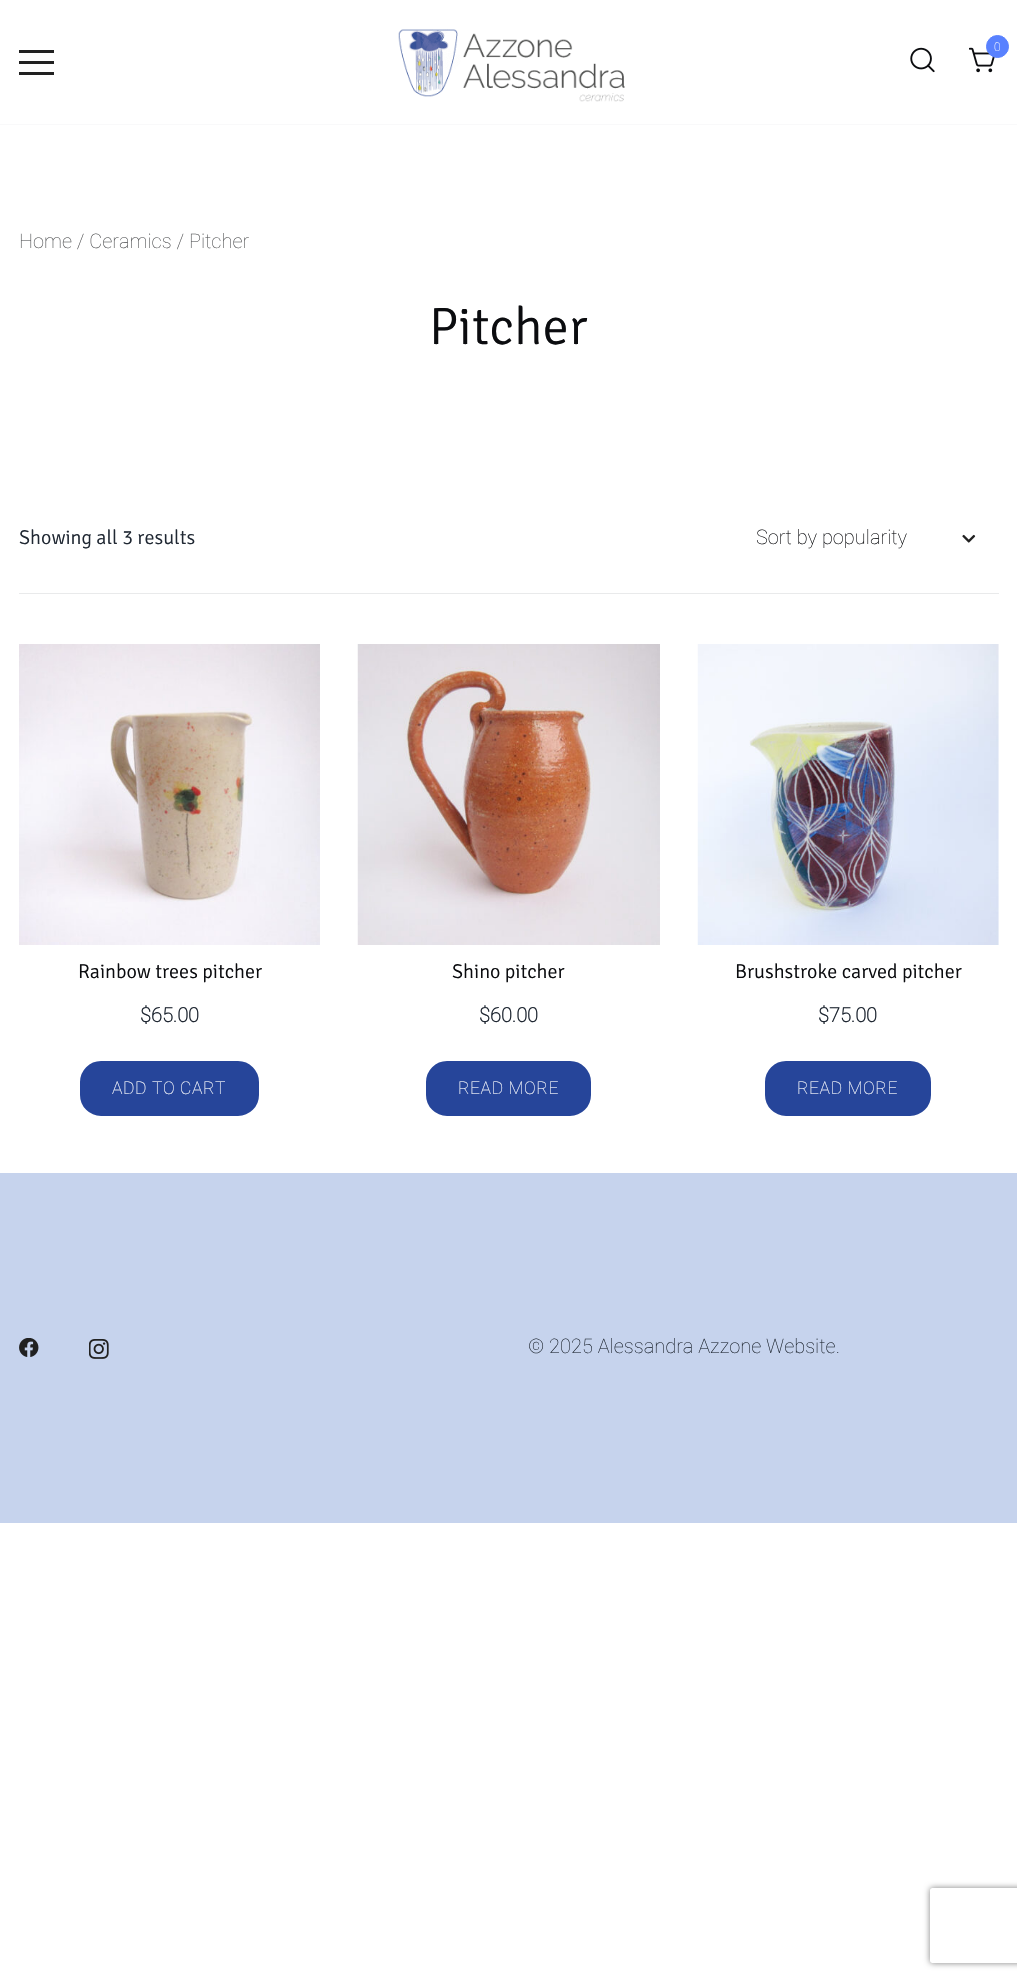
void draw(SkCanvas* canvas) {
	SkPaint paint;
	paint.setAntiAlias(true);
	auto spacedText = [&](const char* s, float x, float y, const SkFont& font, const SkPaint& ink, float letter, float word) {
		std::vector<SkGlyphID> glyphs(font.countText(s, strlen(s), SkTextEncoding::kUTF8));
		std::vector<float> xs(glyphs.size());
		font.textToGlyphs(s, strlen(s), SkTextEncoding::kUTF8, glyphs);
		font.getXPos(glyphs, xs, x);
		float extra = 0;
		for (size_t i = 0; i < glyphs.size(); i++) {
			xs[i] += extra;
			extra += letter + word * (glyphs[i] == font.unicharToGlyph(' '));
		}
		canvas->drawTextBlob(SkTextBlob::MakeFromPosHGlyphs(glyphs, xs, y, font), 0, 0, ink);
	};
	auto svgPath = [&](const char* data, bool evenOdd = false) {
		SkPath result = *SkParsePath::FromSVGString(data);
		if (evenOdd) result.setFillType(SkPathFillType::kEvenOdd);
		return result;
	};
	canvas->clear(0xffffffff);
	paint.setColor(0xfff9f9fa);
	canvas->drawRect(SkRect::MakeXYWH(0, 124, 1017, 1), paint);
	canvas->drawImageRect(SkImages::DeferredFromEncodedData(SkData::MakeFromFileName("img1.png")), SkRect::MakeXYWH(398, 29, 227, 73), SkSamplingOptions());
	canvas->drawImageRect(SkImages::DeferredFromEncodedData(SkData::MakeFromFileName("img2.png")), SkRect::MakeXYWH(910, 47, 25, 26), SkSamplingOptions());
	canvas->drawImageRect(SkImages::DeferredFromEncodedData(SkData::MakeFromFileName("img3.png")), SkRect::MakeXYWH(969, 47, 26, 26), SkSamplingOptions());
	paint.setColor(0xff5881ff);
	canvas->drawCircle(997.5, 46.5, 11, paint);
	paint.setStroke(true);
	paint.setStrokeWidth(1);
	canvas->drawCircle(997.5, 46.5, 11, paint);
	SkFont f1(fontMgr->matchFamilyStyle("Roboto", SkFontStyle(100, SkFontStyle::kNormal_Width, SkFontStyle::kUpright_Slant)), 12);
	f1.setSubpixel(true);
	paint.setStroke(false);
	paint.setColor(0xffffffff);
	canvas->drawString("0", 994, 51, f1, paint);
	paint.setColor(0xff212121);
	canvas->drawRect(SkRect::MakeXYWH(19, 50, 35, 3), paint);
	canvas->drawRect(SkRect::MakeXYWH(19, 61, 35, 3), paint);
	canvas->drawRect(SkRect::MakeXYWH(19, 72, 35, 3), paint);
	SkFont f2(fontMgr->matchFamilyStyle("Roboto", SkFontStyle(100, SkFontStyle::kNormal_Width, SkFontStyle::kUpright_Slant)), 20);
	f2.setSubpixel(true);
	paint.setColor(0xff545557);
	canvas->drawString("Home / Ceramics / Pitcher", 19, 248, f2, paint);
	SkFont f3(fontMgr->matchFamilyStyle("Signika", SkFontStyle(300, SkFontStyle::kNormal_Width, SkFontStyle::kUpright_Slant)), 52.5);
	f3.setSubpixel(true);
	paint.setColor(0xff0b0c0f);
	canvas->drawString("Pitcher", 429, 344, f3, paint);
	paint.setColor(0xffe9eaeb);
	canvas->drawRect(SkRect::MakeXYWH(19, 593, 980, 1), paint);
	SkFont f4(fontMgr->matchFamilyStyle("Signika", SkFontStyle(300, SkFontStyle::kNormal_Width, SkFontStyle::kUpright_Slant)), 20);
	f4.setSubpixel(true);
	paint.setColor(0xff202833);
	canvas->drawString("Showing all 3 results", 19, 544, f4, paint);
	canvas->drawImageRect(SkImages::DeferredFromEncodedData(SkData::MakeFromFileName("img4.png")), SkRect::MakeXYWH(962, 534, 14, 9), SkSamplingOptions());
	paint.setColor(0xff0b0c0f);
	canvas->drawString("Sort by popularity", 756, 544, f2, paint);
	canvas->drawImageRect(SkImages::DeferredFromEncodedData(SkData::MakeFromFileName("img5.png")), SkRect::MakeXYWH(19, 644, 301, 301), SkSamplingOptions());
	canvas->drawString("Rainbow trees pitcher", 78, 978, f4, paint);
	SkFont f5(fontMgr->matchFamilyStyle("Roboto", SkFontStyle::Bold()), 20);
	f5.setSubpixel(true);
	paint.setColor(0xff202833);
	canvas->drawString("$65.00", 140, 1022, f5, paint);
	paint.setColor(0xff26459a);
	canvas->drawRoundRect(SkRect::MakeXYWH(81.5, 1062.5, 176, 52), 19.5, 19.5, paint);
	paint.setStroke(true);
	paint.setStrokeWidth(3);
	canvas->drawRoundRect(SkRect::MakeXYWH(81.5, 1062.5, 176, 52), 19.5, 19.5, paint);
	SkFont f6(fontMgr->matchFamilyStyle("Roboto", SkFontStyle(100, SkFontStyle::kNormal_Width, SkFontStyle::kUpright_Slant)), 17.5);
	f6.setSubpixel(true);
	paint.setStroke(false);
	paint.setColor(0xffffffff);
	spacedText("ADD TO CART", 112, 1094, f6, paint, 0.6, 0);
	canvas->drawImageRect(SkImages::DeferredFromEncodedData(SkData::MakeFromFileName("img6.png")), SkRect::MakeXYWH(357, 644, 303, 301), SkSamplingOptions());
	paint.setColor(0xff0b0c0f);
	canvas->drawString("Shino pitcher", 452, 978, f4, paint);
	paint.setColor(0xff202833);
	canvas->drawString("$60.00", 479, 1022, f5, paint);
	paint.setColor(0xff26459a);
	canvas->drawRoundRect(SkRect::MakeXYWH(427.5, 1062.5, 162, 52), 19.5, 19.5, paint);
	paint.setStroke(true);
	canvas->drawRoundRect(SkRect::MakeXYWH(427.5, 1062.5, 162, 52), 19.5, 19.5, paint);
	paint.setStroke(false);
	paint.setColor(0xffffffff);
	spacedText("READ MORE", 458, 1094, f6, paint, 0.6, 0);
	canvas->drawImageRect(SkImages::DeferredFromEncodedData(SkData::MakeFromFileName("img7.png")), SkRect::MakeXYWH(697, 644, 302, 301), SkSamplingOptions());
	paint.setColor(0xff0b0c0f);
	canvas->drawString("Brushstroke carved pitcher", 735, 978, f4, paint);
	paint.setColor(0xff202833);
	canvas->drawString("$75.00", 818, 1022, f5, paint);
	paint.setColor(0xff26459a);
	canvas->drawRoundRect(SkRect::MakeXYWH(766.5, 1062.5, 163, 52), 19.5, 19.5, paint);
	paint.setStroke(true);
	canvas->drawRoundRect(SkRect::MakeXYWH(766.5, 1062.5, 163, 52), 19.5, 19.5, paint);
	paint.setStroke(false);
	paint.setColor(0xffffffff);
	spacedText("READ MORE", 797, 1094, f6, paint, 0.6, 0);
	paint.setColor(0xffc6d3ed);
	canvas->drawRect(SkRect::MakeXYWH(0, 1173, 1017, 350), paint);
	canvas->drawImageRect(SkImages::DeferredFromEncodedData(SkData::MakeFromFileName("img8.png")), SkRect::MakeXYWH(19, 1338, 20, 19), SkSamplingOptions());
	canvas->drawImageRect(SkImages::DeferredFromEncodedData(SkData::MakeFromFileName("img9.png")), SkRect::MakeXYWH(89, 1339, 20, 20), SkSamplingOptions());
	paint.setColor(0xff202833);
	canvas->drawString("© 2025 Alessandra Azzone Website.", 528, 1353, f2, paint);
	canvas->save();
	canvas->clipPath(svgPath("M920 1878H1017V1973H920ZM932.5 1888H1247.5C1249 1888 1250 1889 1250 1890.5V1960.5C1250 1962 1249 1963 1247.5 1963H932.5C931 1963 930 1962 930 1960.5V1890.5C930 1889 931 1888 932.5 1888Z", true), true);
	paint.setColor(0xff808080);
	paint.setMaskFilter(SkMaskFilter::MakeBlur(kNormal_SkBlurStyle, 3));
	canvas->drawRoundRect(SkRect::MakeXYWH(930, 1888, 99, 75), 2.5, 2.5, paint);
	paint.setMaskFilter(nullptr);
	canvas->restore();
}
